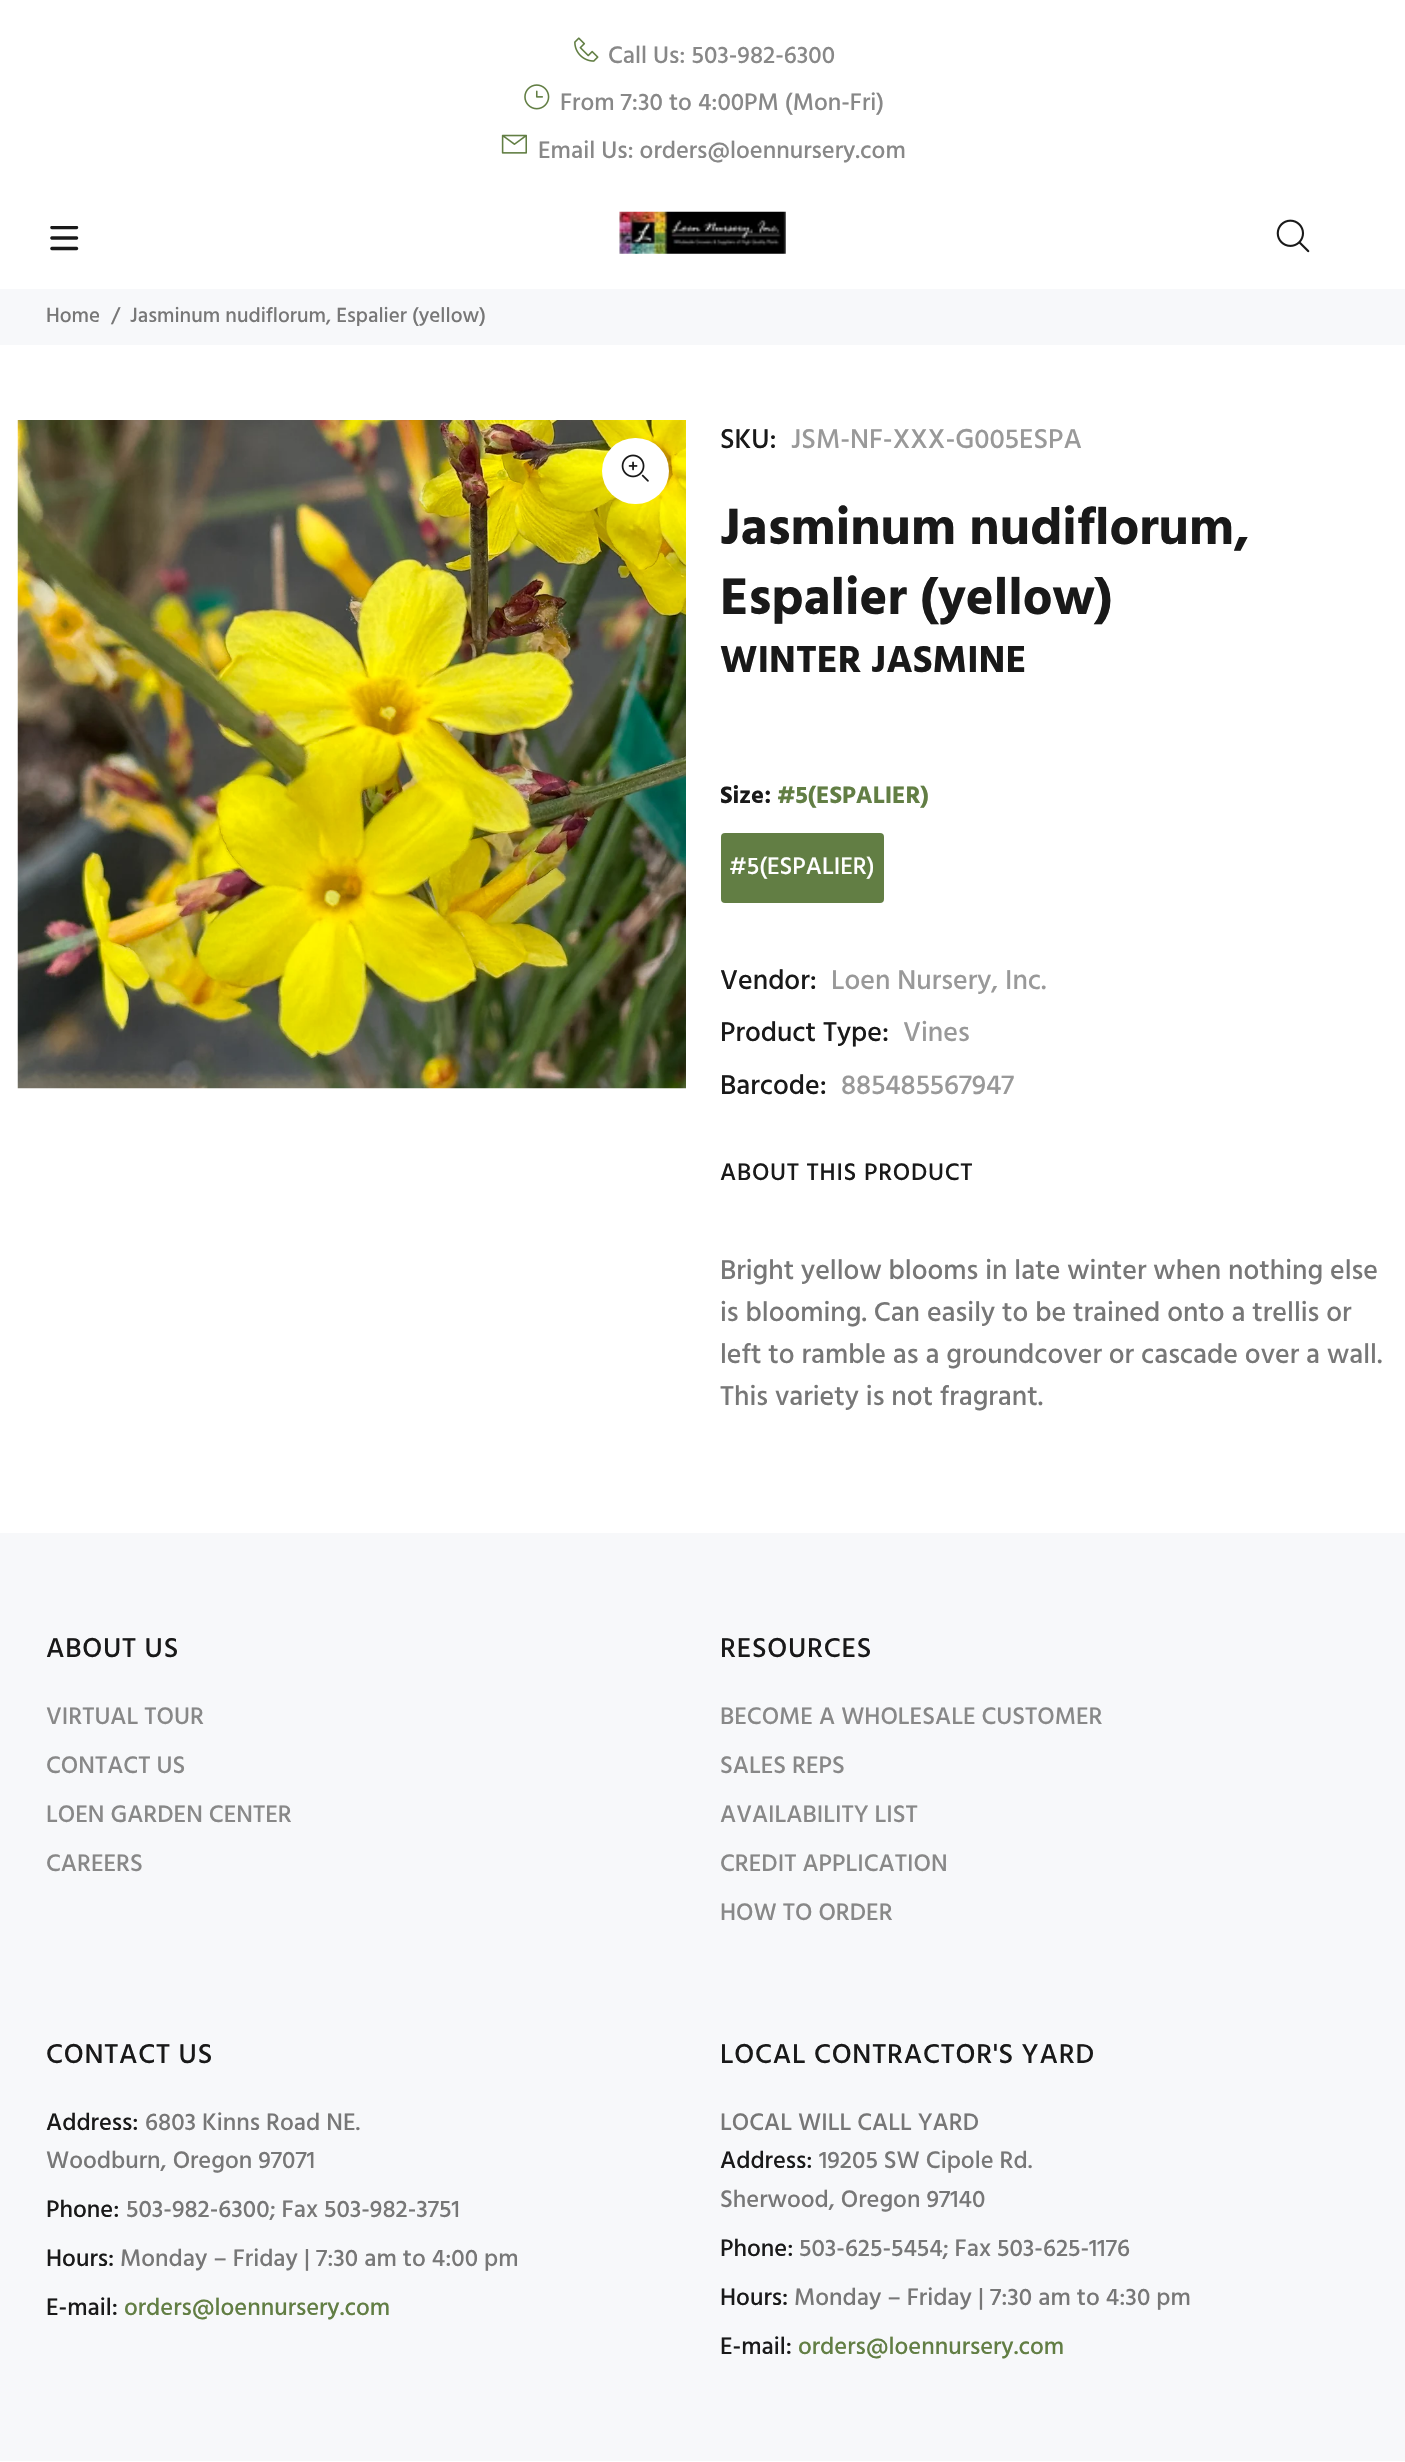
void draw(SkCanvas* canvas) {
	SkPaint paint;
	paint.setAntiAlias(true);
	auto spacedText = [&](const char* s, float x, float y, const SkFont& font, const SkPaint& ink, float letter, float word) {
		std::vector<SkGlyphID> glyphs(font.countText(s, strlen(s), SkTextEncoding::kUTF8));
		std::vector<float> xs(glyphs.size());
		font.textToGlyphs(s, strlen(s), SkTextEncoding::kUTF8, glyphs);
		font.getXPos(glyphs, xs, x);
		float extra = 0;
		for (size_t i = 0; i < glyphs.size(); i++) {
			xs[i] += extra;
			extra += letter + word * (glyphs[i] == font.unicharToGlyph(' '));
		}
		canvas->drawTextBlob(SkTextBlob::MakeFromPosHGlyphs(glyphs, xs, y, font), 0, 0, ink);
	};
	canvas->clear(0xffffffff);
	canvas->drawImageRect(SkImages::DeferredFromEncodedData(SkData::MakeFromFileName("img1.png")), SkRect::MakeXYWH(574, 37, 25, 25), SkSamplingOptions());
	SkFont f1(fontMgr->matchFamilyStyle("Hind", SkFontStyle(500, SkFontStyle::kNormal_Width, SkFontStyle::kUpright_Slant)), 24.5);
	f1.setSubpixel(true);
	paint.setColor(0xff888888);
	canvas->drawString("Call Us: 503-982-6300", 608, 63, f1, paint);
	canvas->drawImageRect(SkImages::DeferredFromEncodedData(SkData::MakeFromFileName("img2.png")), SkRect::MakeXYWH(524, 84, 26, 26), SkSamplingOptions());
	canvas->drawString("From 7:30 to 4:00PM (Mon-Fri)", 560, 110, f1, paint);
	canvas->drawImageRect(SkImages::DeferredFromEncodedData(SkData::MakeFromFileName("img3.png")), SkRect::MakeXYWH(501, 134, 26, 20), SkSamplingOptions());
	canvas->drawString("Email Us: orders@loennursery.com", 538, 158, f1, paint);
	canvas->drawImageRect(SkImages::DeferredFromEncodedData(SkData::MakeFromFileName("img4.png")), SkRect::MakeXYWH(50, 226, 29, 25), SkSamplingOptions());
	canvas->drawImageRect(SkImages::DeferredFromEncodedData(SkData::MakeFromFileName("img5.png")), SkRect::MakeXYWH(619, 211, 167, 43), SkSamplingOptions());
	canvas->drawImageRect(SkImages::DeferredFromEncodedData(SkData::MakeFromFileName("img6.png")), SkRect::MakeXYWH(1276, 219, 34, 34), SkSamplingOptions());
	paint.setColor(0xfff7f8fa);
	canvas->drawRect(SkRect::MakeXYWH(0, 289, 1405, 56), paint);
	SkFont f2(fontMgr->matchFamilyStyle("Hind", SkFontStyle(500, SkFontStyle::kNormal_Width, SkFontStyle::kUpright_Slant)), 21);
	f2.setSubpixel(true);
	paint.setColor(0xff777777);
	canvas->drawString("Home", 46, 322, f2, paint);
	canvas->drawString("/", 111, 322, f2, paint);
	canvas->drawString("Jasminum nudiflorum, Espalier (yellow)", 130, 322, f2, paint);
	canvas->drawImageRect(SkImages::DeferredFromEncodedData(SkData::MakeFromFileName("img7.png")), SkRect::MakeXYWH(17, 420, 669, 669), SkSamplingOptions());
	paint.setColor(0xffffffff);
	canvas->drawRoundRect(SkRect::MakeXYWH(602, 438, 67, 66), 33, 33, paint);
	canvas->drawImageRect(SkImages::DeferredFromEncodedData(SkData::MakeFromFileName("img8.png")), SkRect::MakeXYWH(621, 454, 28, 28), SkSamplingOptions());
	SkFont f3(fontMgr->matchFamilyStyle("Hind", SkFontStyle(500, SkFontStyle::kNormal_Width, SkFontStyle::kUpright_Slant)), 28);
	f3.setSubpixel(true);
	paint.setColor(0xff191919);
	canvas->drawString("SKU:", 720, 448, f3, paint);
	paint.setColor(0xff999999);
	canvas->drawString("JSM-NF-XXX-G005ESPA", 791, 448, f3, paint);
	SkFont f4(fontMgr->matchFamilyStyle("Hind", SkFontStyle::Bold()), 52.5);
	f4.setSubpixel(true);
	paint.setColor(0xff191919);
	canvas->drawString("Jasminum nudiflorum,", 720, 544, f4, paint);
	canvas->drawString("Espalier (yellow)", 720, 614, f4, paint);
	SkFont f5(fontMgr->matchFamilyStyle("Hind", SkFontStyle::Bold()), 38.5);
	f5.setSubpixel(true);
	canvas->drawString("WINTER JASMINE", 720, 672, f5, paint);
	SkFont f6(fontMgr->matchFamilyStyle("Hind", SkFontStyle::Bold()), 24.5);
	f6.setSubpixel(true);
	canvas->drawString("Size:", 720, 803, f6, paint);
	paint.setColor(0xff627e44);
	canvas->drawString("#5(ESPALIER)", 777, 803, f6, paint);
	canvas->drawRoundRect(SkRect::MakeXYWH(721, 833, 163, 70), 4, 4, paint);
	paint.setColor(0xffffffff);
	canvas->drawString("#5(ESPALIER)", 729, 874, f1, paint);
	paint.setColor(0xff191919);
	canvas->drawString("Vendor:", 720, 989, f3, paint);
	paint.setColor(0xff999999);
	canvas->drawString("Loen Nursery, Inc.", 831, 989, f3, paint);
	paint.setColor(0xff191919);
	canvas->drawString("Product Type:", 720, 1041, f3, paint);
	paint.setColor(0xff999999);
	canvas->drawString("Vines", 903, 1041, f3, paint);
	paint.setColor(0xff191919);
	canvas->drawString("Barcode:", 720, 1094, f3, paint);
	paint.setColor(0xff999999);
	canvas->drawString("885485567947", 841, 1094, f3, paint);
	paint.setColor(0xff191919);
	spacedText("ABOUT THIS PRODUCT", 720, 1180, f1, paint, 0.75, 0);
	paint.setColor(0xff777777);
	canvas->drawString("Bright yellow blooms in late winter when nothing else", 720, 1279, f3, paint);
	canvas->drawString("is blooming. Can easily to be trained onto a trellis or", 720, 1321, f3, paint);
	canvas->drawString("left to ramble as a groundcover or cascade over a wall.", 720, 1363, f3, paint);
	canvas->drawString("This variety is not fragrant.", 720, 1405, f3, paint);
	paint.setColor(0xfff7f8fa);
	canvas->drawRect(SkRect::MakeXYWH(0, 1533, 1405, 928), paint);
	paint.setColor(0xff191919);
	spacedText("ABOUT US", 46, 1657, f3, paint, 0.8, 0);
	paint.setColor(0xff888888);
	canvas->drawString("VIRTUAL TOUR", 46, 1724, f1, paint);
	canvas->drawString("CONTACT US", 46, 1773, f1, paint);
	canvas->drawString("LOEN GARDEN CENTER", 46, 1822, f1, paint);
	canvas->drawString("CAREERS", 46, 1871, f1, paint);
	paint.setColor(0xff191919);
	spacedText("RESOURCES", 720, 1657, f3, paint, 0.8, 0);
	paint.setColor(0xff888888);
	canvas->drawString("BECOME A WHOLESALE CUSTOMER", 720, 1724, f1, paint);
	canvas->drawString("SALES REPS", 720, 1773, f1, paint);
	canvas->drawString("AVAILABILITY LIST", 720, 1822, f1, paint);
	canvas->drawString("CREDIT APPLICATION", 720, 1871, f1, paint);
	canvas->drawString("HOW TO ORDER", 720, 1920, f1, paint);
	paint.setColor(0xff191919);
	spacedText("CONTACT US", 46, 2063, f3, paint, 0.8, 0);
	canvas->drawString("Address:", 46, 2130, f1, paint);
	paint.setColor(0xff777777);
	canvas->drawString("6803 Kinns Road NE.", 145, 2130, f1, paint);
	canvas->drawString("Woodburn, Oregon 97071", 46, 2168, f1, paint);
	paint.setColor(0xff191919);
	canvas->drawString("Phone:", 46, 2217, f1, paint);
	paint.setColor(0xff777777);
	canvas->drawString("503-982-6300; Fax 503-982-3751", 126, 2217, f1, paint);
	paint.setColor(0xff191919);
	canvas->drawString("Hours:", 46, 2266, f1, paint);
	paint.setColor(0xff777777);
	canvas->drawString("Monday – Friday | 7:30 am to 4:00 pm", 120, 2266, f1, paint);
	paint.setColor(0xff191919);
	canvas->drawString("E-mail:", 46, 2315, f1, paint);
	paint.setColor(0xff627e44);
	canvas->drawString("orders@loennursery.com", 124, 2315, f1, paint);
	paint.setColor(0xff191919);
	spacedText("LOCAL CONTRACTOR'S YARD", 720, 2063, f3, paint, 0.8, 0);
	paint.setColor(0xff777777);
	canvas->drawString("LOCAL WILL CALL YARD", 720, 2130, f1, paint);
	paint.setColor(0xff191919);
	canvas->drawString("Address:", 720, 2168, f1, paint);
	paint.setColor(0xff777777);
	canvas->drawString("19205 SW Cipole Rd.", 819, 2168, f1, paint);
	canvas->drawString("Sherwood, Oregon 97140", 720, 2207, f1, paint);
	paint.setColor(0xff191919);
	canvas->drawString("Phone:", 720, 2256, f1, paint);
	paint.setColor(0xff777777);
	canvas->drawString("503-625-5454; Fax 503-625-1176", 799, 2256, f1, paint);
	paint.setColor(0xff191919);
	canvas->drawString("Hours:", 720, 2305, f1, paint);
	paint.setColor(0xff777777);
	canvas->drawString("Monday – Friday | 7:30 am to 4:30 pm", 794, 2305, f1, paint);
	paint.setColor(0xff191919);
	canvas->drawString("E-mail:", 720, 2354, f1, paint);
	paint.setColor(0xff627e44);
	canvas->drawString("orders@loennursery.com", 798, 2354, f1, paint);
}
